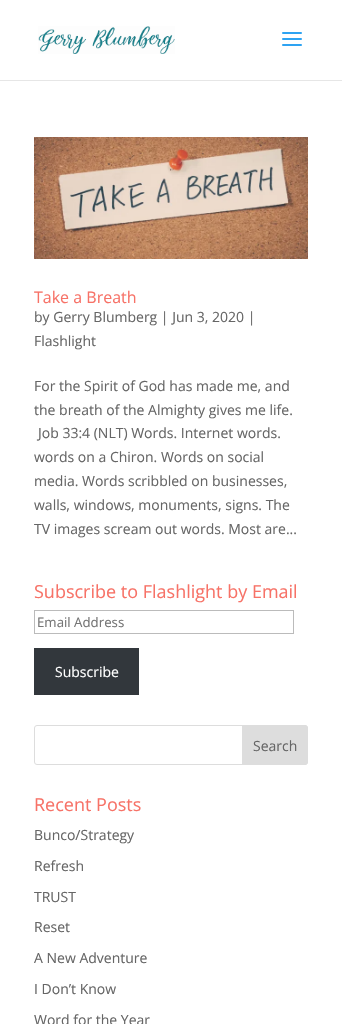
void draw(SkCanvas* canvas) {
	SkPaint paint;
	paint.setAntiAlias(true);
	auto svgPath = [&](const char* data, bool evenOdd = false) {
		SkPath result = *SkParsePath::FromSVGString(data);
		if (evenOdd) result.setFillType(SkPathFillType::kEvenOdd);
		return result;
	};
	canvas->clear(0xffffffff);
	paint.setColor(0xffe6e6e6);
	canvas->drawRect(SkRect::MakeXYWH(0, 80, 342, 1), paint);
	canvas->drawImageRect(SkImages::DeferredFromEncodedData(SkData::MakeFromFileName("img1.png")), SkRect::MakeXYWH(38, 26, 137, 28), SkSamplingOptions());
	canvas->drawImageRect(SkImages::DeferredFromEncodedData(SkData::MakeFromFileName("img2.png")), SkRect::MakeXYWH(282, 32, 20, 14), SkSamplingOptions());
	canvas->drawImageRect(SkImages::DeferredFromEncodedData(SkData::MakeFromFileName("img3.png")), SkRect::MakeXYWH(34, 137, 274, 122), SkSamplingOptions());
	SkFont f1(fontMgr->matchFamilyStyle("Open Sans", SkFontStyle::Normal()), 16);
	f1.setSubpixel(true);
	paint.setColor(0xfff77267);
	canvas->drawString("Take a Breath", 34, 303, f1, paint);
	SkFont f2(fontMgr->matchFamilyStyle("Open Sans", SkFontStyle::Normal()), 14);
	f2.setSubpixel(true);
	paint.setColor(0xff666666);
	canvas->drawString("by Gerry Blumberg | Jun 3, 2020 |", 34, 322, f2, paint);
	canvas->drawString("Flashlight", 34, 346, f2, paint);
	canvas->drawString("For the Spirit of God has made me, and", 34, 391, f2, paint);
	canvas->drawString("the breath of the Almighty gives me life.", 34, 415, f2, paint);
	canvas->drawString("Job 33:4 (NLT) Words. Internet words.", 38, 438, f2, paint);
	canvas->drawString("words on a Chiron. Words on social", 34, 462, f2, paint);
	canvas->drawString("media. Words scribbled on businesses,", 34, 486, f2, paint);
	canvas->drawString("walls, windows, monuments, signs. The", 34, 510, f2, paint);
	canvas->drawString("TV images scream out words. Most are...", 34, 534, f2, paint);
	SkFont f3(fontMgr->matchFamilyStyle("Open Sans", SkFontStyle::Normal()), 18);
	f3.setSubpixel(true);
	paint.setColor(0xfff77267);
	canvas->drawString("Subscribe to Flashlight by Email", 34, 598, f3, paint);
	paint.setStroke(true);
	paint.setStrokeWidth(1);
	paint.setColor(0xffbbbbbb);
	canvas->drawRect(SkRect::MakeXYWH(34.5, 610.5, 259, 23), paint);
	SkFont f4(fontMgr->matchFamilyStyle("Open Sans", SkFontStyle::Normal()), 13.25);
	f4.setSubpixel(true);
	paint.setStroke(false);
	paint.setColor(0xff757575);
	canvas->drawString("Email Address", 37, 627, f4, paint);
	paint.setColor(0xff32373c);
	canvas->drawRect(SkRect::MakeXYWH(34, 648, 105, 47), paint);
	paint.setColor(0xffffffff);
	canvas->drawString("Subscribe", 55, 677, f2, paint);
	paint.setStroke(true);
	paint.setColor(0xffdddddd);
	canvas->drawRoundRect(SkRect::MakeXYWH(34.5, 725.5, 273, 39), 2.5, 2.5, paint);
	paint.setStroke(false);
	canvas->drawPath(svgPath("M242.5 725.5H305C306.5 725.5 307.5 726.5 307.5 728V762C307.5 763.5 306.5 764.5 305 764.5H242.5Z"), paint);
	paint.setStroke(true);
	canvas->drawPath(svgPath("M242.5 725.5H305C306.5 725.5 307.5 726.5 307.5 728V762C307.5 763.5 306.5 764.5 305 764.5H242.5Z"), paint);
	paint.setStroke(false);
	paint.setColor(0xff666666);
	canvas->drawString("Search", 253, 751, f2, paint);
	paint.setColor(0xfff77267);
	canvas->drawString("Recent Posts", 34, 811, f3, paint);
	paint.setColor(0xff666666);
	canvas->drawString("Bunco/Strategy", 34, 840, f2, paint);
	canvas->drawString("Refresh", 34, 871, f2, paint);
	canvas->drawString("TRUST", 34, 902, f2, paint);
	canvas->drawString("Reset", 34, 932, f2, paint);
	canvas->drawString("A New Adventure", 34, 963, f2, paint);
	canvas->drawString("I Don’t Know", 34, 994, f2, paint);
	canvas->drawString("Word for the Year", 34, 1025, f2, paint);
}
